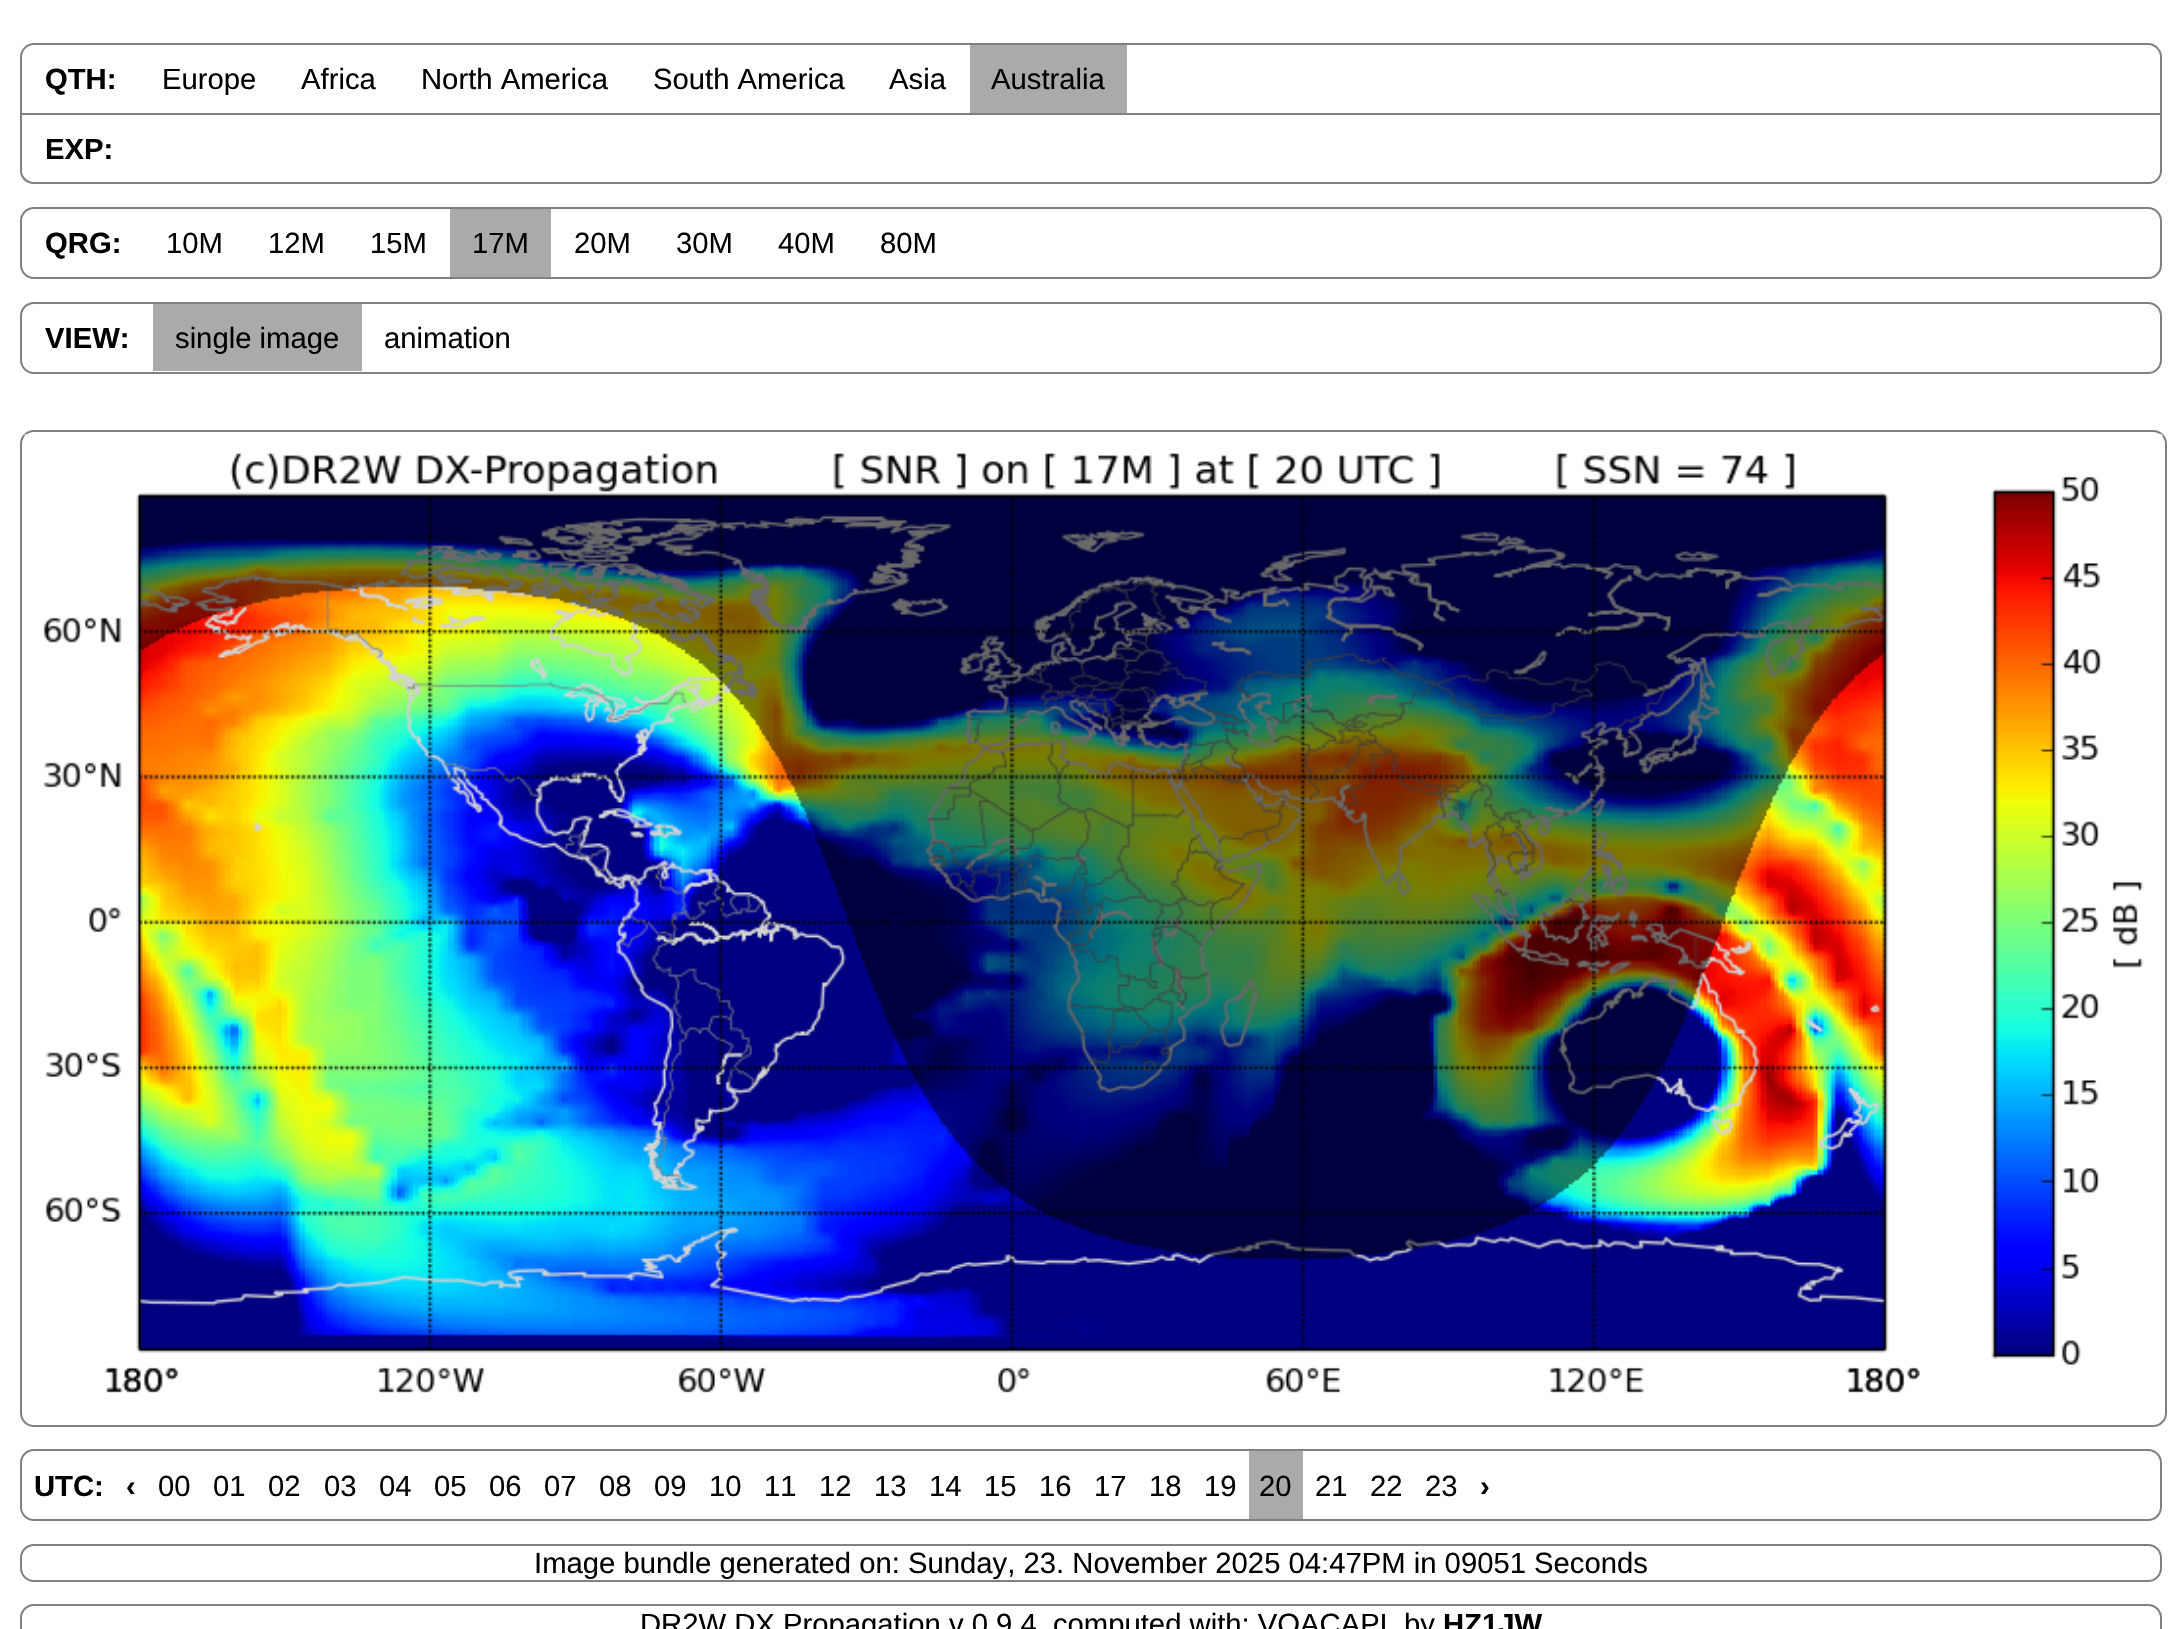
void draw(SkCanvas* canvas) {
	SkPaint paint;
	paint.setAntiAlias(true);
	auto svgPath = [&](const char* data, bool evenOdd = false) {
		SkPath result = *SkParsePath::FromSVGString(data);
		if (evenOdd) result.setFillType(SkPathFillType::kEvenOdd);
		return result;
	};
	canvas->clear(0xffffffff);
	paint.setStroke(true);
	paint.setStrokeWidth(2);
	paint.setColor(0xff808080);
	canvas->drawPath(svgPath("M34 44H2148C2155 44 2161 50 2161 57V114H21V57C21 50 27 44 34 44Z"), paint);
	SkFont f1(fontMgr->matchFamilyStyle("Liberation Sans", SkFontStyle::Bold()), 29.25);
	f1.setSubpixel(true);
	paint.setStroke(false);
	paint.setColor(0xff000000);
	canvas->drawString("QTH:", 45, 89, f1, paint);
	SkFont f2(fontMgr->matchFamilyStyle("Liberation Sans", SkFontStyle::Normal()), 29.25);
	f2.setSubpixel(true);
	canvas->drawString("Europe", 162, 89, f2, paint);
	canvas->drawString("Africa", 301, 89, f2, paint);
	canvas->drawString("North America", 421, 89, f2, paint);
	canvas->drawString("South America", 653, 89, f2, paint);
	canvas->drawString("Asia", 889, 89, f2, paint);
	paint.setColor(0xffaaaaaa);
	canvas->drawRect(SkRect::MakeXYWH(970, 45, 157, 68), paint);
	paint.setColor(0xff000000);
	canvas->drawString("Australia", 991, 89, f2, paint);
	paint.setColor(0xff808080);
	canvas->drawPath(svgPath("M20 115H2162V171C2162 178 2156 184 2149 184H34C26 184 20 178 20 171ZM22 115H2160V171C2160 177 2155 182 2149 182H34C28 182 22 177 22 171Z", true), paint);
	paint.setColor(0xff000000);
	canvas->drawString("EXP:", 45, 159, f1, paint);
	paint.setStroke(true);
	paint.setColor(0xff808080);
	canvas->drawRoundRect(SkRect::MakeXYWH(21, 208, 2140, 70), 13, 13, paint);
	paint.setStroke(false);
	paint.setColor(0xff000000);
	canvas->drawString("QRG:", 45, 253, f1, paint);
	canvas->drawString("10M", 166, 253, f2, paint);
	canvas->drawString("12M", 268, 253, f2, paint);
	canvas->drawString("15M", 370, 253, f2, paint);
	paint.setColor(0xffaaaaaa);
	canvas->drawRect(SkRect::MakeXYWH(450, 209, 101, 68), paint);
	paint.setColor(0xff000000);
	canvas->drawString("17M", 472, 253, f2, paint);
	canvas->drawString("20M", 574, 253, f2, paint);
	canvas->drawString("30M", 676, 253, f2, paint);
	canvas->drawString("40M", 778, 253, f2, paint);
	canvas->drawString("80M", 880, 253, f2, paint);
	paint.setStroke(true);
	paint.setColor(0xff808080);
	canvas->drawRoundRect(SkRect::MakeXYWH(21, 303, 2140, 70), 13, 13, paint);
	paint.setStroke(false);
	paint.setColor(0xff000000);
	canvas->drawString("VIEW:", 45, 348, f1, paint);
	paint.setColor(0xffaaaaaa);
	canvas->drawRect(SkRect::MakeXYWH(153, 304, 209, 67), paint);
	paint.setColor(0xff000000);
	canvas->drawString("single image", 175, 348, f2, paint);
	canvas->drawString("animation", 384, 348, f2, paint);
	paint.setStroke(true);
	paint.setColor(0xff808080);
	canvas->drawRoundRect(SkRect::MakeXYWH(21, 431, 2145, 995), 13, 13, paint);
	canvas->drawImageRect(SkImages::DeferredFromEncodedData(SkData::MakeFromFileName("img1.png")), SkRect::MakeXYWH(24, 434, 2139, 959), SkSamplingOptions());
	canvas->drawRoundRect(SkRect::MakeXYWH(21, 1450, 2140, 70), 13, 13, paint);
	paint.setStroke(false);
	paint.setColor(0xff000000);
	canvas->drawString("UTC:", 34, 1496, f1, paint);
	canvas->drawString("‹", 126, 1496, f1, paint);
	canvas->drawString("00", 158, 1496, f2, paint);
	canvas->drawString("01", 213, 1496, f2, paint);
	canvas->drawString("02", 268, 1496, f2, paint);
	canvas->drawString("03", 324, 1496, f2, paint);
	canvas->drawString("04", 379, 1496, f2, paint);
	canvas->drawString("05", 434, 1496, f2, paint);
	canvas->drawString("06", 489, 1496, f2, paint);
	canvas->drawString("07", 544, 1496, f2, paint);
	canvas->drawString("08", 599, 1496, f2, paint);
	canvas->drawString("09", 654, 1496, f2, paint);
	canvas->drawString("10", 709, 1496, f2, paint);
	canvas->drawString("11", 764, 1496, f2, paint);
	canvas->drawString("12", 819, 1496, f2, paint);
	canvas->drawString("13", 874, 1496, f2, paint);
	canvas->drawString("14", 929, 1496, f2, paint);
	canvas->drawString("15", 984, 1496, f2, paint);
	canvas->drawString("16", 1039, 1496, f2, paint);
	canvas->drawString("17", 1094, 1496, f2, paint);
	canvas->drawString("18", 1149, 1496, f2, paint);
	canvas->drawString("19", 1204, 1496, f2, paint);
	paint.setColor(0xffaaaaaa);
	canvas->drawRect(SkRect::MakeXYWH(1249, 1451, 54, 68), paint);
	paint.setColor(0xff000000);
	canvas->drawString("20", 1259, 1496, f2, paint);
	canvas->drawString("21", 1315, 1496, f2, paint);
	canvas->drawString("22", 1370, 1496, f2, paint);
	canvas->drawString("23", 1425, 1496, f2, paint);
	canvas->drawString("›", 1480, 1496, f1, paint);
	paint.setStroke(true);
	paint.setColor(0xff808080);
	canvas->drawRoundRect(SkRect::MakeXYWH(21, 1545, 2140, 36), 13, 13, paint);
	paint.setStroke(false);
	paint.setColor(0xff000000);
	canvas->drawString("Image bundle generated on: Sunday, 23. November 2025 04:47PM in 09051 Seconds", 534, 1573, f2, paint);
	paint.setStroke(true);
	paint.setColor(0xff808080);
	canvas->drawRoundRect(SkRect::MakeXYWH(21, 1605, 2140, 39), 13, 13, paint);
	paint.setStroke(false);
	paint.setColor(0xff000000);
	canvas->drawString("DR2W DX Propagation v.0.9.4, computed with: VOACAPL by", 640, 1634, f2, paint);
	canvas->drawString("HZ1JW", 1443, 1634, f1, paint);
}
